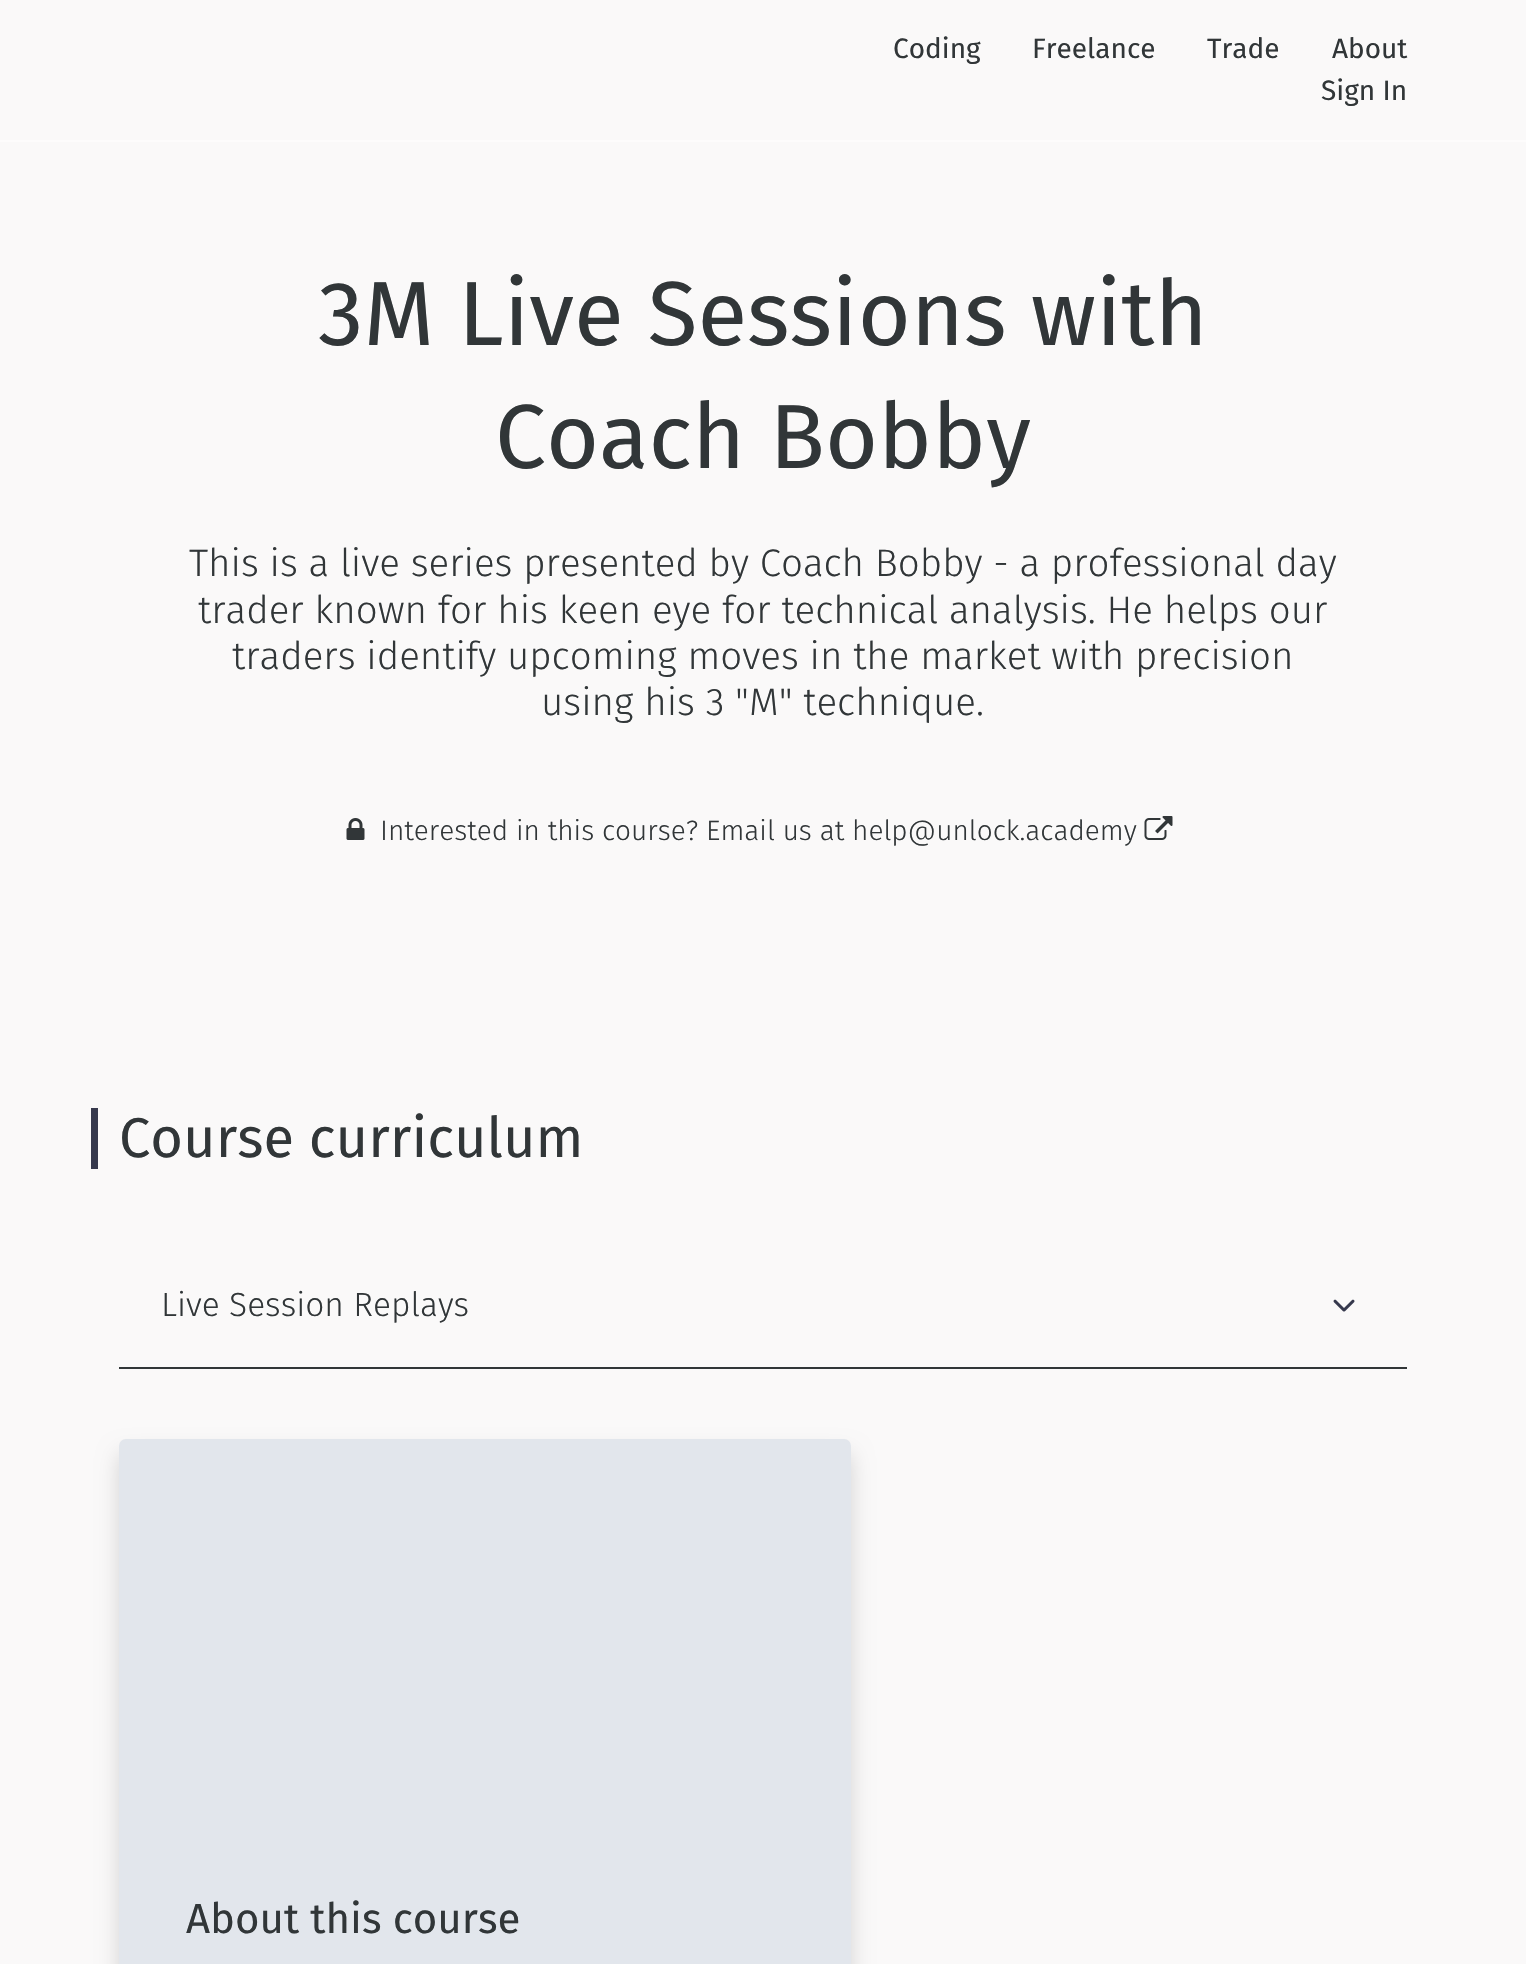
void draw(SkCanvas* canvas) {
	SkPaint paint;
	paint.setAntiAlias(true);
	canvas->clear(0xfffaf9f9);
	paint.setColor(0xfffdfcfc);
	canvas->drawRect(SkRect::MakeXYWH(0, 140, 1526, 2), paint);
	SkFont f1(fontMgr->matchFamilyStyle("Fira Sans", SkFontStyle::Normal()), 28);
	f1.setSubpixel(true);
	paint.setColor(0xff313638);
	canvas->drawString("Coding", 893, 58, f1, paint);
	canvas->drawString("Freelance", 1032, 58, f1, paint);
	canvas->drawString("Trade", 1207, 58, f1, paint);
	canvas->drawString("About", 1332, 58, f1, paint);
	canvas->drawString("Sign In", 1321, 100, f1, paint);
	SkFont f2(fontMgr->matchFamilyStyle("Fira Sans", SkFontStyle::Normal()), 91);
	f2.setSubpixel(true);
	canvas->drawString("3M Live Sessions with", 318, 345, f2, paint);
	canvas->drawString("Coach Bobby", 495, 468, f2, paint);
	SkFont f3(fontMgr->matchFamilyStyle("Fira Sans", SkFontStyle(300, SkFontStyle::kNormal_Width, SkFontStyle::kUpright_Slant)), 38.5);
	f3.setSubpixel(true);
	canvas->drawString("This is a live series presented by Coach Bobby - a professional day", 189, 576, f3, paint);
	canvas->drawString("trader known for his keen eye for technical analysis. He helps our", 198, 623, f3, paint);
	canvas->drawString("traders identify upcoming moves in the market with precision", 232, 669, f3, paint);
	canvas->drawString("using his 3 \"M\" technique.", 541, 715, f3, paint);
	canvas->drawImageRect(SkImages::DeferredFromEncodedData(SkData::MakeFromFileName("img1.png")), SkRect::MakeXYWH(346, 818, 19, 22), SkSamplingOptions());
	SkFont f4(fontMgr->matchFamilyStyle("Fira Sans", SkFontStyle(300, SkFontStyle::kNormal_Width, SkFontStyle::kUpright_Slant)), 28);
	f4.setSubpixel(true);
	canvas->drawString("Interested in this course? Email us at help@unlock.academy", 380, 840, f4, paint);
	canvas->drawImageRect(SkImages::DeferredFromEncodedData(SkData::MakeFromFileName("img2.png")), SkRect::MakeXYWH(1144, 816, 29, 24), SkSamplingOptions());
	paint.setColor(0xff36394d);
	canvas->drawRect(SkRect::MakeXYWH(91, 1108, 7, 61), paint);
	SkFont f5(fontMgr->matchFamilyStyle("Fira Sans", SkFontStyle::Normal()), 56);
	f5.setSubpixel(true);
	paint.setColor(0xff313638);
	canvas->drawString("Course curriculum", 119, 1157, f5, paint);
	canvas->drawRect(SkRect::MakeXYWH(119, 1367, 1288, 2), paint);
	SkFont f6(fontMgr->matchFamilyStyle("Fira Sans", SkFontStyle(300, SkFontStyle::kNormal_Width, SkFontStyle::kUpright_Slant)), 33.5);
	f6.setSubpixel(true);
	canvas->drawString("Live Session Replays", 161, 1316, f6, paint);
	canvas->drawImageRect(SkImages::DeferredFromEncodedData(SkData::MakeFromFileName("img3.png")), SkRect::MakeXYWH(1333, 1299, 22, 13), SkSamplingOptions());
	paint.setColor(0x26000000);
	paint.setMaskFilter(SkMaskFilter::MakeBlur(kNormal_SkBlurStyle, 10.5));
	canvas->drawRoundRect(SkRect::MakeXYWH(119, 1453, 732, 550), 7, 7, paint);
	paint.setMaskFilter(nullptr);
	paint.setColor(0xffe2e6ec);
	canvas->drawRoundRect(SkRect::MakeXYWH(119, 1439, 732, 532), 7, 7, paint);
	SkFont f7(fontMgr->matchFamilyStyle("Fira Sans", SkFontStyle::Normal()), 42);
	f7.setSubpixel(true);
	paint.setColor(0xff313638);
	canvas->drawString("About this course", 186, 1933, f7, paint);
}
